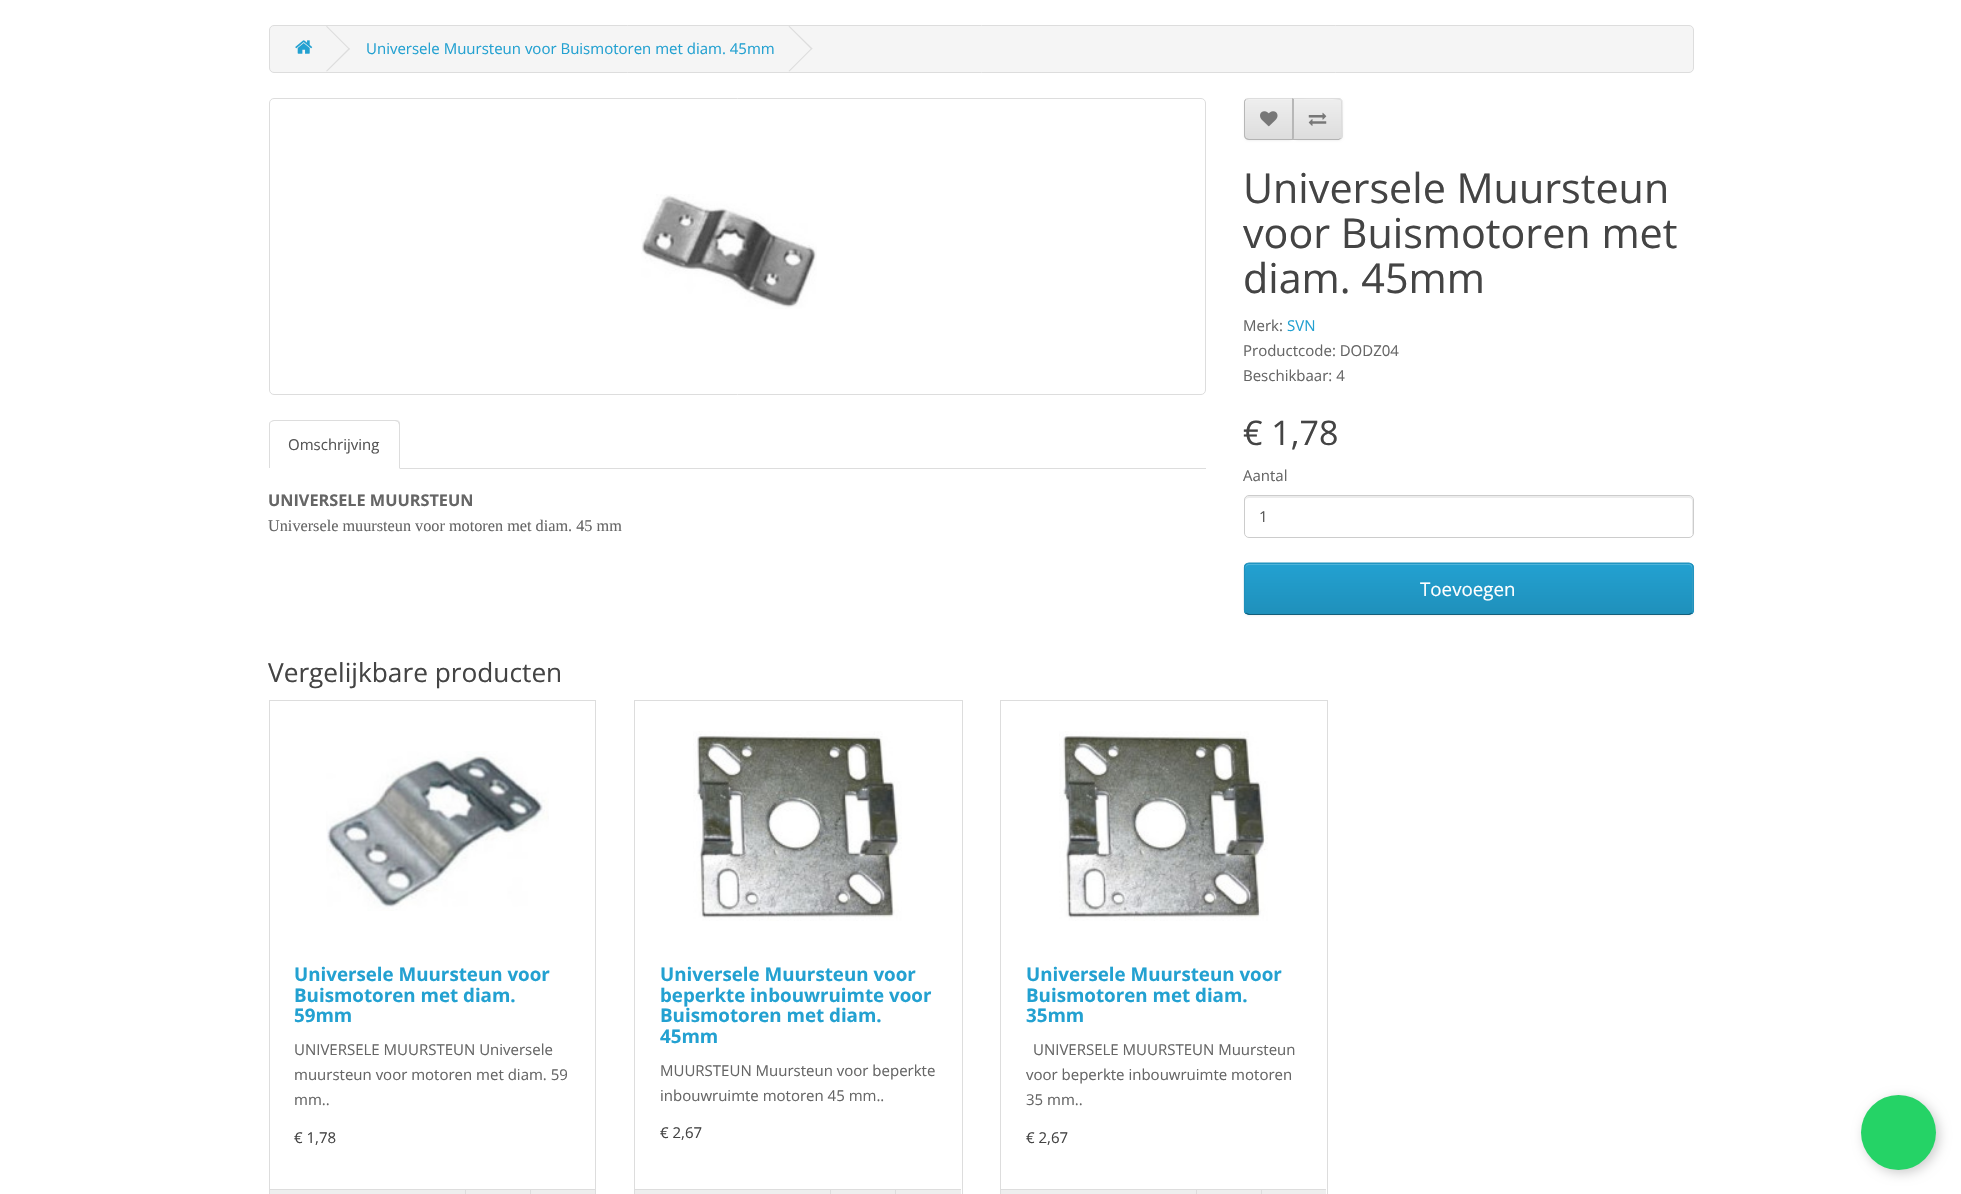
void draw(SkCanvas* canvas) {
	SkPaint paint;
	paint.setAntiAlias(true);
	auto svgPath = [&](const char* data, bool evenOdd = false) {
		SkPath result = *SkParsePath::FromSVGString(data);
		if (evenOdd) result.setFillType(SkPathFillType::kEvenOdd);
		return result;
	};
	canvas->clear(0xffffffff);
	paint.setStroke(true);
	paint.setStrokeWidth(1.2);
	paint.setColor(0xff145e7a);
	canvas->drawPath(svgPath("M1692-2L1689-.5H274L270.5-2"), paint);
	paint.setStroke(false);
	paint.setColor(0xfff5f5f5);
	canvas->drawRoundRect(SkRect::MakeXYWH(269.5, 25.5, 1424, 47), 4.5, 4.5, paint);
	paint.setStroke(true);
	paint.setStrokeWidth(1);
	paint.setColor(0xffdddddd);
	canvas->drawRoundRect(SkRect::MakeXYWH(269.5, 25.5, 1424, 47), 4.5, 4.5, paint);
	canvas->drawImageRect(SkImages::DeferredFromEncodedData(SkData::MakeFromFileName("img1.png")), SkRect::MakeXYWH(295, 40, 18, 14), SkSamplingOptions());
	paint.setStroke(false);
	canvas->drawPath(svgPath("M326 26.5L327 26L350 49L349 49.5Z"), paint);
	canvas->drawPath(svgPath("M326 71L349 48L350 49L327 71.5Z"), paint);
	SkFont f1(fontMgr->matchFamilyStyle("Open Sans", SkFontStyle::Normal()), 15);
	f1.setSubpixel(true);
	paint.setColor(0xff23a1d1);
	canvas->drawString("Universele Muursteun voor Buismotoren met diam. 45mm", 366, 54, f1, paint);
	paint.setColor(0xffdddddd);
	canvas->drawPath(svgPath("M788.5 26.5L789.5 26L812.5 48.5L811.5 49.5Z"), paint);
	canvas->drawPath(svgPath("M788.5 71L811.5 48L812.5 48.5L789.5 71.5Z"), paint);
	paint.setStroke(true);
	canvas->drawRoundRect(SkRect::MakeXYWH(269.5, 98.5, 936, 296), 4.5, 4.5, paint);
	canvas->drawImageRect(SkImages::DeferredFromEncodedData(SkData::MakeFromFileName("img2.png")), SkRect::MakeXYWH(641, 194, 176, 115), SkSamplingOptions());
	paint.setStroke(false);
	canvas->drawRect(SkRect::MakeXYWH(400, 468, 806, 1), paint);
	canvas->drawPath(svgPath("M274 420C272 420 271 421 270 422H271L274 421H395L398 422L399 421C398 420 396 420 395 420Z"), paint);
	canvas->drawPath(svgPath("M400 469V425C400 424 400 422 399 421L398 422C398 423 399 424 399 425V468Z"), paint);
	canvas->drawPath(svgPath("M270 422C269 422 269 424 269 425V468H270V425C270 424 270 423 271 422Z"), paint);
	paint.setColor(0xff555555);
	canvas->drawString("Omschrijving", 288, 450, f1, paint);
	SkFont f2(fontMgr->matchFamilyStyle("Open Sans", SkFontStyle::Bold()), 16.25);
	f2.setSubpixel(true);
	paint.setColor(0xff666666);
	canvas->drawString("UNIVERSELE MUURSTEUN", 268, 506, f2, paint);
	SkFont f3(fontMgr->matchFamilyStyle("Liberation Serif", SkFontStyle::Normal()), 16.25);
	f3.setSubpixel(true);
	canvas->drawString("Universele muursteun voor motoren met diam. 45 mm", 268, 531, f3, paint);
	paint.setColor(0x0d000000);
	paint.setMaskFilter(SkMaskFilter::MakeBlur(kNormal_SkBlurStyle, 1));
	canvas->drawRoundRect(SkRect::MakeXYWH(1244, 99, 50, 42), 5, 5, paint);
	paint.setMaskFilter(nullptr);
	paint.setColor(0xffe7e7e7);
	canvas->drawPath(svgPath("M1249 98H1294V140H1249C1246 140 1244 138 1244 135V103C1244 100 1246 98 1249 98Z"), paint);
	canvas->save();
	canvas->clipPath(svgPath("M1249 98H1294V140H1249C1246 140 1244 138 1244 135V103C1244 100 1246 98 1249 98Z"), true);
	{
		const SkColor colors[] = {0xffeeeeee, 0xffdddddd};
		const float stops[] = {0, 1};
		const SkPoint ends[] = {{1269, 99}, {1269, 139}};
		paint.setShader(SkGradientShader::MakeLinear(ends, colors, stops, 2, SkTileMode::kClamp));
		paint.setAlpha(255);
	}
	canvas->drawRect(SkRect::MakeXYWH(1244, 99, 48, 40), paint);
	canvas->restore();
	paint.setShader(nullptr);
	paint.setColor(0x33ffffff);
	canvas->drawPath(svgPath("M1249 100H1292V139H1293V99H1249C1247 99 1245 101 1245 103V104C1245 102 1247 100 1249 100Z"), paint);
	paint.setColor(0xffdddddd);
	canvas->drawPath(svgPath("M1249 98L1245 99L1246 100L1249 99H1292L1293 98Z"), paint);
	paint.setColor(0xffb3b3b3);
	canvas->drawPath(svgPath("M1294 140L1292 138V139H1249C1248 139 1247 138 1246 138H1245C1246 139 1247 140 1249 140Z"), paint);
	paint.setColor(0xffb7b7b7);
	canvas->drawPath(svgPath("M1245.5 99C1244.5 100 1244 101 1244 102V135C1244 136.5 1244.5 137.5 1245.5 138.5L1246 137.5C1245.5 137 1245 136 1245 135V102C1245 101 1245.5 100.5 1246 100Z"), paint);
	canvas->drawImageRect(SkImages::DeferredFromEncodedData(SkData::MakeFromFileName("img3.png")), SkRect::MakeXYWH(1260, 111, 18, 16), SkSamplingOptions());
	paint.setColor(0x0d000000);
	paint.setMaskFilter(SkMaskFilter::MakeBlur(kNormal_SkBlurStyle, 1));
	canvas->drawRoundRect(SkRect::MakeXYWH(1293, 99, 50, 42), 5, 5, paint);
	paint.setMaskFilter(nullptr);
	paint.setColor(0xffe7e7e7);
	canvas->drawPath(svgPath("M1293 98H1338C1341 98 1343 100 1343 103V135C1343 138 1341 140 1338 140H1293Z"), paint);
	canvas->save();
	canvas->clipPath(svgPath("M1293 98H1338C1341 98 1343 100 1343 103V135C1343 138 1341 140 1338 140H1293Z"), true);
	{
		const SkColor colors[] = {0xffeeeeee, 0xffdddddd};
		const float stops[] = {0, 1};
		const SkPoint ends[] = {{1318, 99}, {1318, 139}};
		paint.setShader(SkGradientShader::MakeLinear(ends, colors, stops, 2, SkTileMode::kClamp));
		paint.setAlpha(255);
	}
	canvas->drawRect(SkRect::MakeXYWH(1293, 99, 50, 40), paint);
	canvas->restore();
	paint.setShader(nullptr);
	paint.setColor(0xfff1f1f1);
	canvas->drawPath(svgPath("M1294 100H1338C1340 100 1341 102 1341 104V103C1341 101 1339 99 1337 99H1294Z"), paint);
	paint.setColor(0xffdddddd);
	canvas->drawPath(svgPath("M1294 99C1299 99 1338 98 1340 100L1341 99C1340 98 1339 98 1338 98H1293Z"), paint);
	canvas->drawPath(svgPath("M1341 99C1341.5 100 1342 101 1342 102V135C1342 136.5 1341.5 137.5 1341 138.5L1340 138C1341 137 1341 136 1341 135V102C1341 101 1341 100 1340 100Z"), paint);
	paint.setColor(0xffb3b3b3);
	canvas->drawPath(svgPath("M1292 140H1339L1341 138H1340L1339 139H1294V138Z"), paint);
	paint.setColor(0xffb7b7b7);
	canvas->drawPath(svgPath("M1294 99L1292 98V140L1294 138Z"), paint);
	canvas->drawImageRect(SkImages::DeferredFromEncodedData(SkData::MakeFromFileName("img4.png")), SkRect::MakeXYWH(1308, 112, 19, 14), SkSamplingOptions());
	SkFont f4(fontMgr->matchFamilyStyle("Open Sans", SkFontStyle::Normal()), 41.25);
	f4.setSubpixel(true);
	paint.setColor(0xff444444);
	canvas->drawString("Universele Muursteun", 1243, 203, f4, paint);
	canvas->drawString("voor Buismotoren met", 1243, 248, f4, paint);
	canvas->drawString("diam. 45mm", 1243, 293, f4, paint);
	paint.setColor(0xff666666);
	canvas->drawString("Merk:", 1243, 331, f1, paint);
	paint.setColor(0xff23a1d1);
	canvas->drawString("SVN", 1287, 331, f1, paint);
	paint.setColor(0xff666666);
	canvas->drawString("Productcode: DODZ04", 1243, 356, f1, paint);
	canvas->drawString("Beschikbaar: 4", 1243, 381, f1, paint);
	SkFont f5(fontMgr->matchFamilyStyle("Open Sans", SkFontStyle::Normal()), 34);
	f5.setSubpixel(true);
	paint.setColor(0xff444444);
	canvas->drawString("€ 1,78", 1243, 445, f5, paint);
	paint.setColor(0xff666666);
	canvas->drawString("Aantal", 1243, 481, f1, paint);
	paint.setColor(0xffececec);
	canvas->drawPath(svgPath("M1249 498H1689C1691 498 1692 499 1692 501V535C1693 534 1693 533 1693 532V500C1693 498 1691 496 1689 496H1249C1247 496 1245 498 1245 500V501C1245 499 1247 498 1249 498Z"), paint);
	paint.setStroke(true);
	paint.setColor(0xffcccccc);
	canvas->drawRoundRect(SkRect::MakeXYWH(1244.5, 495.5, 449, 42), 4.5, 4.5, paint);
	paint.setStroke(false);
	paint.setColor(0xff555555);
	canvas->drawString("1", 1259, 522, f1, paint);
	paint.setColor(0x0d000000);
	paint.setMaskFilter(SkMaskFilter::MakeBlur(kNormal_SkBlurStyle, 1));
	canvas->drawRoundRect(SkRect::MakeXYWH(1244, 564, 450, 52), 5, 5, paint);
	paint.setMaskFilter(nullptr);
	paint.setColor(0xff229ac8);
	canvas->drawRoundRect(SkRect::MakeXYWH(1244, 563, 450, 52), 5, 5, paint);
	canvas->save();
	canvas->clipPath(svgPath("M1249 563H1689C1692 563 1694 565 1694 568V610C1694 613 1692 615 1689 615H1249C1246 615 1244 613 1244 610V568C1244 565 1246 563 1249 563Z"), true);
	{
		const SkColor colors[] = {0xff23a1d1, 0xff1f90bb};
		const float stops[] = {0, 1};
		const SkPoint ends[] = {{1469, 564}, {1469, 614}};
		paint.setShader(SkGradientShader::MakeLinear(ends, colors, stops, 2, SkTileMode::kClamp));
		paint.setAlpha(255);
	}
	canvas->drawRect(SkRect::MakeXYWH(1244, 564, 450, 50), paint);
	canvas->restore();
	paint.setShader(nullptr);
	paint.setColor(0x33ffffff);
	canvas->drawPath(svgPath("M1249 565H1689C1691 565 1692 567 1692 569V613C1692 612 1693 611 1693 610V568C1693 566 1691 564 1689 564H1249C1247 564 1245 566 1245 568V569C1245 567 1247 565 1249 565Z"), paint);
	paint.setStroke(true);
	paint.setStrokeWidth(1.2);
	paint.setColor(0xff145e7a);
	canvas->drawPath(svgPath("M1692 613L1689 614.5H1249L1245.5 613"), paint);
	paint.setColor(0xff1f90bb);
	canvas->drawPath(svgPath("M1245.5 613C1245 612.5 1244.5 611 1244.5 610V567.5C1244.5 566.5 1245 565 1245.5 564.5C1246.5 563.5 1247.5 563 1249 563H1689C1690 563 1691 563.5 1692 564.5C1692.5 565 1693 566.5 1693 567.5V610C1693 611 1692.5 612.5 1692 613"), paint);
	SkFont f6(fontMgr->matchFamilyStyle("Open Sans", SkFontStyle::Normal()), 18.75);
	f6.setSubpixel(true);
	paint.setStroke(false);
	paint.setColor(0xffffffff);
	canvas->drawString("Toevoegen", 1420, 596, f6, paint);
	SkFont f7(fontMgr->matchFamilyStyle("Open Sans", SkFontStyle::Normal()), 26.25);
	f7.setSubpixel(true);
	paint.setColor(0xff444444);
	canvas->drawString("Vergelijkbare producten", 268, 682, f7, paint);
	paint.setStroke(true);
	paint.setStrokeWidth(1);
	paint.setColor(0xffdddddd);
	canvas->drawRect(SkRect::MakeXYWH(269.5, 700.5, 326, 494), paint);
	canvas->drawImageRect(SkImages::DeferredFromEncodedData(SkData::MakeFromFileName("img5.png")), SkRect::MakeXYWH(326, 751, 223, 160), SkSamplingOptions());
	SkFont f8(fontMgr->matchFamilyStyle("Open Sans", SkFontStyle::Bold()), 18.75);
	f8.setSubpixel(true);
	paint.setStroke(false);
	paint.setColor(0xff23a1d1);
	canvas->drawString("Universele Muursteun voor", 294, 981, f8, paint);
	canvas->drawString("Buismotoren met diam.", 294, 1002, f8, paint);
	canvas->drawString("59mm", 294, 1022, f8, paint);
	paint.setColor(0xff666666);
	canvas->drawString("UNIVERSELE MUURSTEUN Universele", 294, 1055, f1, paint);
	canvas->drawString("muursteun voor motoren met diam. 59", 294, 1080, f1, paint);
	canvas->drawString("mm..", 294, 1105, f1, paint);
	paint.setColor(0xff444444);
	canvas->drawString("€ 1,78", 294, 1143, f1, paint);
	paint.setColor(0xffeeeeee);
	canvas->drawRect(SkRect::MakeXYWH(270, 1190, 325, 4), paint);
	paint.setColor(0xffdddddd);
	canvas->drawRect(SkRect::MakeXYWH(270, 1189, 325, 1), paint);
	canvas->drawRect(SkRect::MakeXYWH(465, 1190, 1, 4), paint);
	canvas->drawRect(SkRect::MakeXYWH(530, 1190, 1, 4), paint);
	paint.setStroke(true);
	canvas->drawRect(SkRect::MakeXYWH(634.5, 700.5, 328, 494), paint);
	canvas->drawImageRect(SkImages::DeferredFromEncodedData(SkData::MakeFromFileName("img6.png")), SkRect::MakeXYWH(693, 731, 209, 190), SkSamplingOptions());
	paint.setStroke(false);
	paint.setColor(0xff23a1d1);
	canvas->drawString("Universele Muursteun voor", 660, 981, f8, paint);
	canvas->drawString("beperkte inbouwruimte voor", 660, 1002, f8, paint);
	canvas->drawString("Buismotoren met diam.", 660, 1022, f8, paint);
	canvas->drawString("45mm", 660, 1043, f8, paint);
	paint.setColor(0xff666666);
	canvas->drawString("MUURSTEUN Muursteun voor beperkte", 660, 1076, f1, paint);
	canvas->drawString("inbouwruimte motoren 45 mm..", 660, 1101, f1, paint);
	paint.setColor(0xff444444);
	canvas->drawString("€ 2,67", 660, 1138, f1, paint);
	paint.setColor(0xffeeeeee);
	canvas->drawRect(SkRect::MakeXYWH(635, 1190, 326, 4), paint);
	paint.setColor(0xffdddddd);
	canvas->drawRect(SkRect::MakeXYWH(635, 1189, 326, 1), paint);
	canvas->drawRect(SkRect::MakeXYWH(830, 1190, 1, 4), paint);
	canvas->drawRect(SkRect::MakeXYWH(895, 1190, 1, 4), paint);
	paint.setStroke(true);
	canvas->drawRect(SkRect::MakeXYWH(1000.5, 700.5, 327, 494), paint);
	canvas->drawImageRect(SkImages::DeferredFromEncodedData(SkData::MakeFromFileName("img7.png")), SkRect::MakeXYWH(1059, 731, 209, 190), SkSamplingOptions());
	paint.setStroke(false);
	paint.setColor(0xff23a1d1);
	canvas->drawString("Universele Muursteun voor", 1026, 981, f8, paint);
	canvas->drawString("Buismotoren met diam.", 1026, 1002, f8, paint);
	canvas->drawString("35mm", 1026, 1022, f8, paint);
	paint.setColor(0xff666666);
	canvas->drawString("UNIVERSELE MUURSTEUN Muursteun", 1033, 1055, f1, paint);
	canvas->drawString("voor beperkte inbouwruimte motoren", 1026, 1080, f1, paint);
	canvas->drawString("35 mm..", 1026, 1105, f1, paint);
	paint.setColor(0xff444444);
	canvas->drawString("€ 2,67", 1026, 1143, f1, paint);
	paint.setColor(0xffeeeeee);
	canvas->drawRect(SkRect::MakeXYWH(1001, 1190, 325, 4), paint);
	paint.setColor(0xffdddddd);
	canvas->drawRect(SkRect::MakeXYWH(1001, 1189, 325, 1), paint);
	canvas->drawRect(SkRect::MakeXYWH(1196, 1190, 1, 4), paint);
	canvas->drawRect(SkRect::MakeXYWH(1261, 1190, 1, 4), paint);
	paint.setColor(0x33000000);
	paint.setMaskFilter(SkMaskFilter::MakeBlur(kNormal_SkBlurStyle, 6));
	canvas->drawRoundRect(SkRect::MakeXYWH(1864, 1098, 75, 75), 37.5, 37.5, paint);
	paint.setMaskFilter(nullptr);
	paint.setColor(0xff25d366);
	canvas->drawCircle(1898.5, 1132.5, 37.5, paint);
}
